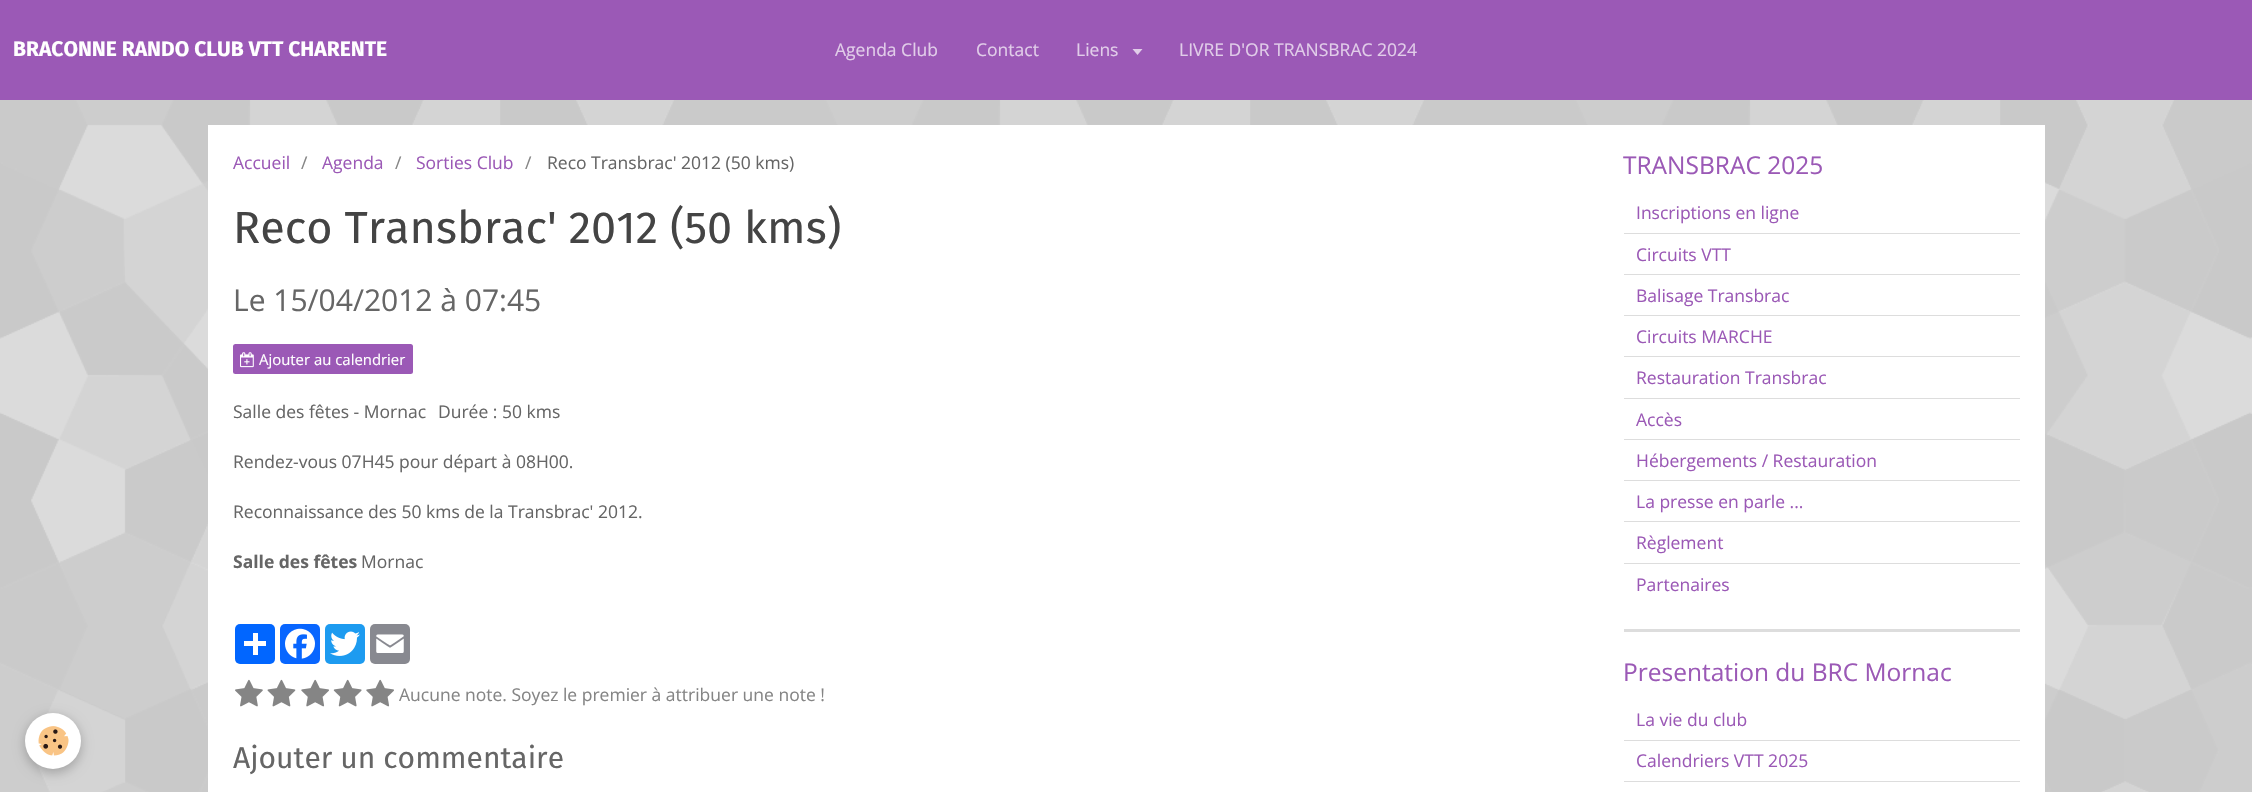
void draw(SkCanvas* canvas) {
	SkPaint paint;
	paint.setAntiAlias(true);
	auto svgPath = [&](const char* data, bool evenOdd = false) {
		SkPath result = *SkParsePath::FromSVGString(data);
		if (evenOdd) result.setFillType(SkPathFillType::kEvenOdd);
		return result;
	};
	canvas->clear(0xffe0e0e0);
	canvas->drawImageRect(SkImages::DeferredFromEncodedData(SkData::MakeFromFileName("img1.png")), SkRect::MakeXYWH(0, 100, 2252, 692), SkSamplingOptions());
	paint.setColor(0xff9b59b6);
	canvas->drawRect(SkRect::MakeXYWH(0, 0, 2252, 100), paint);
	SkFont f1(fontMgr->matchFamilyStyle("Fira Sans", SkFontStyle::Bold()), 21);
	f1.setSubpixel(true);
	paint.setColor(0xffffffff);
	canvas->drawString("BRACONNE RANDO CLUB VTT CHARENTE", 13, 56, f1, paint);
	SkFont f2(fontMgr->matchFamilyStyle("Open Sans", SkFontStyle::Normal()), 17.5);
	f2.setSubpixel(true);
	paint.setColor(0xffe1cde9);
	canvas->drawString("Agenda Club", 835, 56, f2, paint);
	canvas->drawString("Contact", 976, 56, f2, paint);
	canvas->drawString("Liens", 1076, 56, f2, paint);
	canvas->drawPath(svgPath("M1132.5 49H1142.5L1137.5 55Z"), paint);
	canvas->drawString("LIVRE D'OR TRANSBRAC 2024", 1179, 56, f2, paint);
	paint.setColor(0x3d000000);
	paint.setMaskFilter(SkMaskFilter::MakeBlur(kNormal_SkBlurStyle, 6));
	canvas->drawRoundRect(SkRect::MakeXYWH(25, 716, 56, 57), 28, 28, paint);
	paint.setMaskFilter(nullptr);
	paint.setColor(0xffffffff);
	canvas->drawCircle(53, 741, 28, paint);
	canvas->drawImageRect(SkImages::DeferredFromEncodedData(SkData::MakeFromFileName("img2.png")), SkRect::MakeXYWH(38, 726, 31, 30), SkSamplingOptions());
	canvas->drawRect(SkRect::MakeXYWH(208, 125, 1837, 667), paint);
	paint.setColor(0xff9b59b6);
	canvas->drawString("Accueil", 233, 169, f2, paint);
	paint.setColor(0xff858585);
	canvas->drawString("/", 301, 169, f2, paint);
	paint.setColor(0xff9b59b6);
	canvas->drawString("Agenda", 322, 169, f2, paint);
	paint.setColor(0xff858585);
	canvas->drawString("/", 395, 169, f2, paint);
	paint.setColor(0xff9b59b6);
	canvas->drawString("Sorties Club", 416, 169, f2, paint);
	paint.setColor(0xff858585);
	canvas->drawString("/", 525, 169, f2, paint);
	paint.setColor(0xff666666);
	canvas->drawString("Reco Transbrac' 2012 (50 kms)", 547, 169, f2, paint);
	SkFont f3(fontMgr->matchFamilyStyle("Fira Sans", SkFontStyle::Normal()), 45);
	f3.setSubpixel(true);
	paint.setColor(0xff444444);
	canvas->drawString("Reco Transbrac' 2012 (50 kms)", 233, 243, f3, paint);
	SkFont f4(fontMgr->matchFamilyStyle("Open Sans", SkFontStyle::Normal()), 30);
	f4.setSubpixel(true);
	paint.setColor(0xff666666);
	canvas->drawString("Le 15/04/2012 à 07:45", 233, 311, f4, paint);
	paint.setColor(0xff9b59b6);
	canvas->drawRoundRect(SkRect::MakeXYWH(233, 344, 180, 30), 2.5, 2.5, paint);
	canvas->drawImageRect(SkImages::DeferredFromEncodedData(SkData::MakeFromFileName("img3.png")), SkRect::MakeXYWH(240, 352, 14, 16), SkSamplingOptions());
	SkFont f5(fontMgr->matchFamilyStyle("Open Sans", SkFontStyle::Normal()), 14.9);
	f5.setSubpixel(true);
	paint.setColor(0xffffffff);
	canvas->drawString("Ajouter au calendrier", 259, 365, f5, paint);
	paint.setColor(0xff666666);
	canvas->drawString("Salle des fêtes - Mornac", 233, 418, f2, paint);
	canvas->drawString("Durée : 50 kms", 438, 418, f2, paint);
	canvas->drawString("Rendez-vous 07H45 pour départ à 08H00.", 233, 468, f2, paint);
	canvas->drawString("Reconnaissance des 50 kms de la Transbrac' 2012.", 233, 518, f2, paint);
	SkFont f6(fontMgr->matchFamilyStyle("Open Sans", SkFontStyle::Bold()), 17.5);
	f6.setSubpixel(true);
	canvas->drawString("Salle des fêtes", 233, 568, f6, paint);
	canvas->drawString("Mornac", 361, 568, f2, paint);
	paint.setColor(0xff0166ff);
	canvas->drawRoundRect(SkRect::MakeXYWH(235, 624, 40, 40), 5, 5, paint);
	paint.setColor(0xffffffff);
	canvas->drawRect(SkRect::MakeXYWH(253, 633, 5, 22), paint);
	canvas->drawRect(SkRect::MakeXYWH(244, 641, 22, 5), paint);
	paint.setColor(0xff0866ff);
	canvas->drawRoundRect(SkRect::MakeXYWH(280, 624, 40, 40), 5, 5, paint);
	canvas->drawImageRect(SkImages::DeferredFromEncodedData(SkData::MakeFromFileName("img4.png")), SkRect::MakeXYWH(285, 628, 30, 31), SkSamplingOptions());
	paint.setColor(0xff1d9bf0);
	canvas->drawRoundRect(SkRect::MakeXYWH(325, 624, 40, 40), 5, 5, paint);
	canvas->drawImageRect(SkImages::DeferredFromEncodedData(SkData::MakeFromFileName("img5.png")), SkRect::MakeXYWH(330, 631, 30, 25), SkSamplingOptions());
	paint.setColor(0xff888990);
	canvas->drawRoundRect(SkRect::MakeXYWH(370, 624, 40, 40), 5, 5, paint);
	canvas->drawImageRect(SkImages::DeferredFromEncodedData(SkData::MakeFromFileName("img6.png")), SkRect::MakeXYWH(376, 634, 28, 19), SkSamplingOptions());
	canvas->drawImageRect(SkImages::DeferredFromEncodedData(SkData::MakeFromFileName("img7.png")), SkRect::MakeXYWH(235, 679, 28, 28), SkSamplingOptions());
	canvas->drawImageRect(SkImages::DeferredFromEncodedData(SkData::MakeFromFileName("img8.png")), SkRect::MakeXYWH(267, 679, 29, 28), SkSamplingOptions());
	canvas->drawImageRect(SkImages::DeferredFromEncodedData(SkData::MakeFromFileName("img9.png")), SkRect::MakeXYWH(301, 679, 28, 28), SkSamplingOptions());
	canvas->drawImageRect(SkImages::DeferredFromEncodedData(SkData::MakeFromFileName("img10.png")), SkRect::MakeXYWH(333, 679, 29, 28), SkSamplingOptions());
	canvas->drawImageRect(SkImages::DeferredFromEncodedData(SkData::MakeFromFileName("img9.png")), SkRect::MakeXYWH(366, 679, 28, 28), SkSamplingOptions());
	paint.setColor(0xff858585);
	canvas->drawString("Aucune note. Soyez le premier à attribuer une note !", 399, 701, f2, paint);
	SkFont f7(fontMgr->matchFamilyStyle("Fira Sans", SkFontStyle::Normal()), 30);
	f7.setSubpixel(true);
	paint.setColor(0xff666666);
	canvas->drawString("Ajouter un commentaire", 233, 768, f7, paint);
	paint.setColor(0xffdddddd);
	canvas->drawRect(SkRect::MakeXYWH(1624, 629, 396, 3), paint);
	SkFont f8(fontMgr->matchFamilyStyle("Open Sans", SkFontStyle::Normal()), 24.5);
	f8.setSubpixel(true);
	paint.setColor(0xff9b59b6);
	canvas->drawString("TRANSBRAC 2025", 1623, 174, f8, paint);
	paint.setColor(0xffdddddd);
	canvas->drawRect(SkRect::MakeXYWH(1624, 233, 396, 1), paint);
	paint.setColor(0xff9b59b6);
	canvas->drawString("Inscriptions en ligne", 1636, 219, f2, paint);
	paint.setColor(0xffdddddd);
	canvas->drawRect(SkRect::MakeXYWH(1624, 274, 396, 1), paint);
	paint.setColor(0xff9b59b6);
	canvas->drawString("Circuits VTT", 1636, 261, f2, paint);
	paint.setColor(0xffdddddd);
	canvas->drawRect(SkRect::MakeXYWH(1624, 315, 396, 1), paint);
	paint.setColor(0xff9b59b6);
	canvas->drawString("Balisage Transbrac", 1636, 302, f2, paint);
	paint.setColor(0xffdddddd);
	canvas->drawRect(SkRect::MakeXYWH(1624, 356, 396, 1), paint);
	paint.setColor(0xff9b59b6);
	canvas->drawString("Circuits MARCHE", 1636, 343, f2, paint);
	paint.setColor(0xffdddddd);
	canvas->drawRect(SkRect::MakeXYWH(1624, 398, 396, 1), paint);
	paint.setColor(0xff9b59b6);
	canvas->drawString("Restauration Transbrac", 1636, 384, f2, paint);
	paint.setColor(0xffdddddd);
	canvas->drawRect(SkRect::MakeXYWH(1624, 439, 396, 1), paint);
	paint.setColor(0xff9b59b6);
	canvas->drawString("Accès", 1636, 426, f2, paint);
	paint.setColor(0xffdddddd);
	canvas->drawRect(SkRect::MakeXYWH(1624, 480, 396, 1), paint);
	paint.setColor(0xff9b59b6);
	canvas->drawString("Hébergements / Restauration", 1636, 467, f2, paint);
	paint.setColor(0xffdddddd);
	canvas->drawRect(SkRect::MakeXYWH(1624, 521, 396, 1), paint);
	paint.setColor(0xff9b59b6);
	canvas->drawString("La presse en parle ...", 1636, 508, f2, paint);
	paint.setColor(0xffdddddd);
	canvas->drawRect(SkRect::MakeXYWH(1624, 563, 396, 1), paint);
	paint.setColor(0xff9b59b6);
	canvas->drawString("Règlement", 1636, 549, f2, paint);
	canvas->drawString("Partenaires", 1636, 591, f2, paint);
	canvas->drawString("Presentation du BRC Mornac", 1623, 681, f8, paint);
	paint.setColor(0xffdddddd);
	canvas->drawRect(SkRect::MakeXYWH(1624, 740, 396, 1), paint);
	paint.setColor(0xff9b59b6);
	canvas->drawString("La vie du club", 1636, 726, f2, paint);
	paint.setColor(0xffdddddd);
	canvas->drawRect(SkRect::MakeXYWH(1624, 781, 396, 1), paint);
	paint.setColor(0xff9b59b6);
	canvas->drawString("Calendriers VTT 2025", 1636, 767, f2, paint);
}
